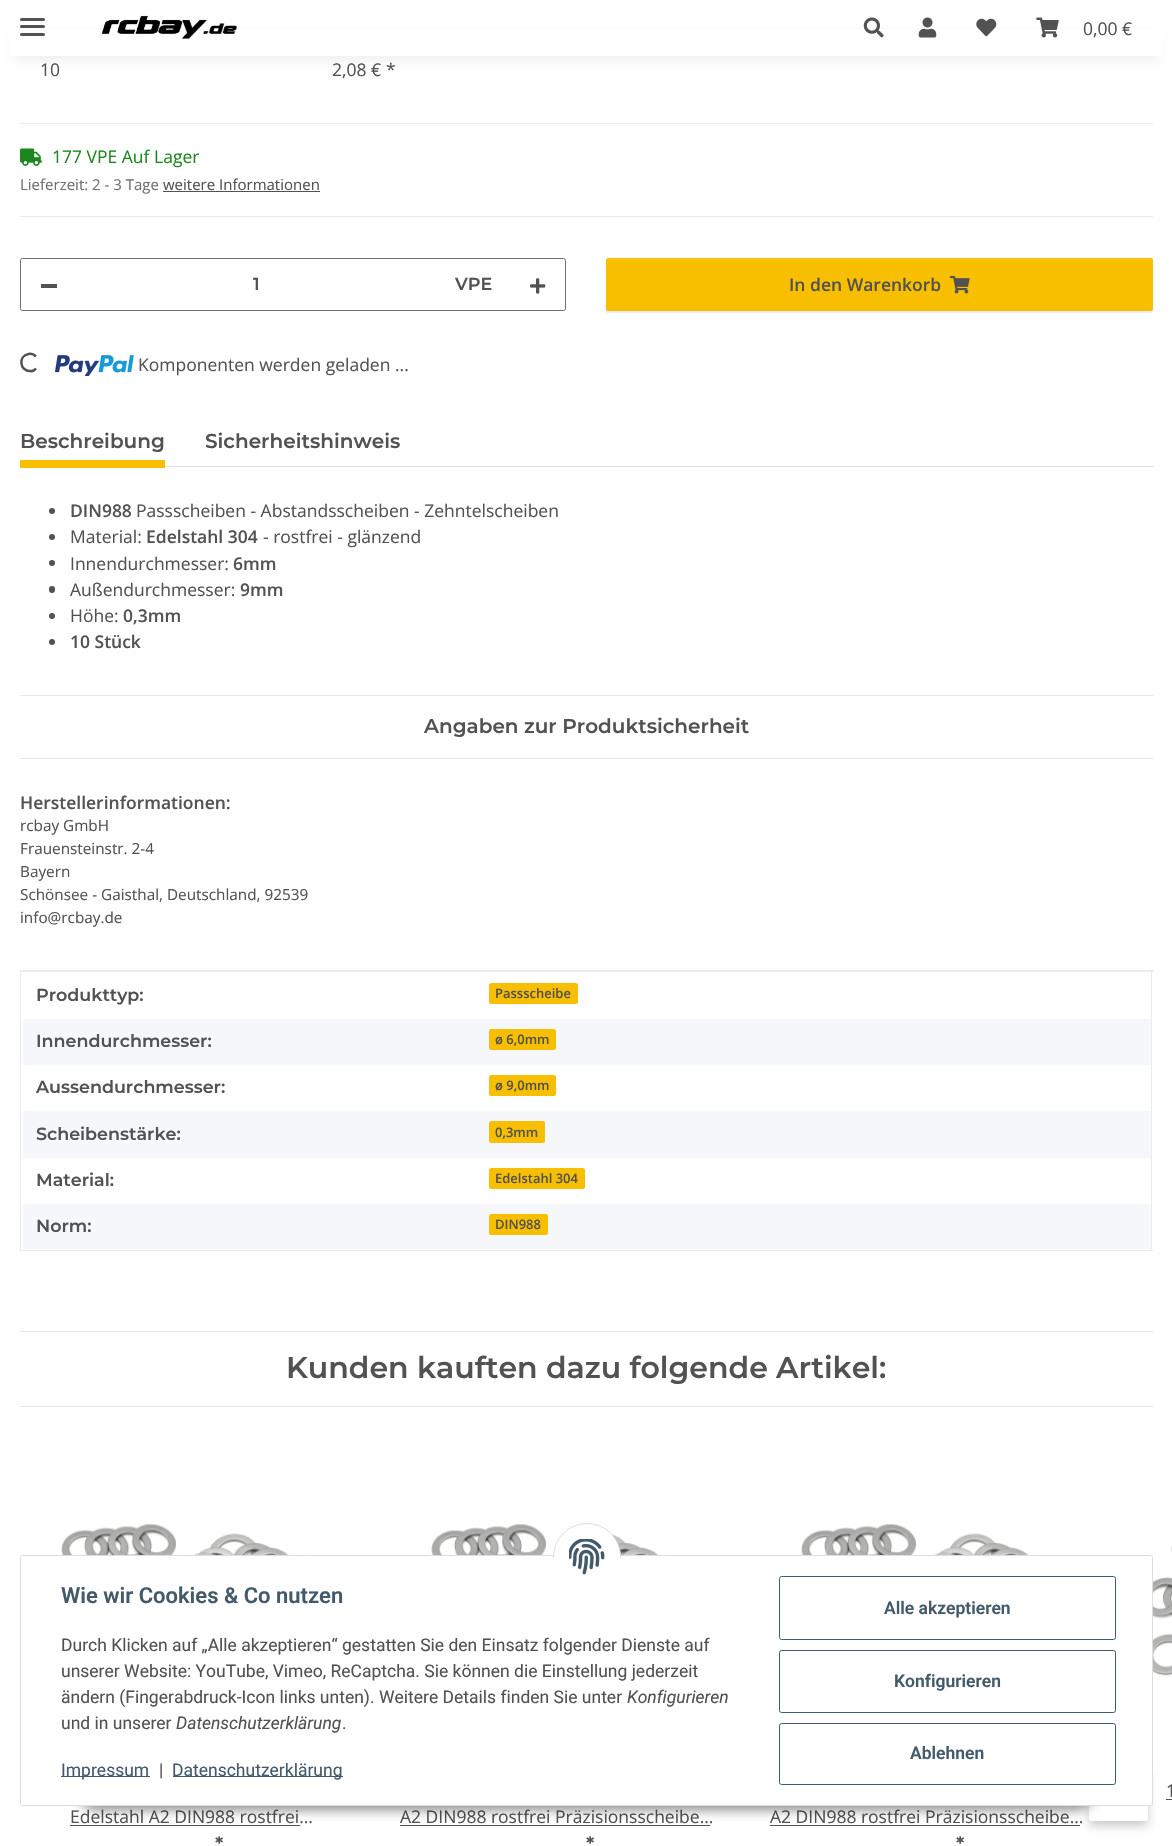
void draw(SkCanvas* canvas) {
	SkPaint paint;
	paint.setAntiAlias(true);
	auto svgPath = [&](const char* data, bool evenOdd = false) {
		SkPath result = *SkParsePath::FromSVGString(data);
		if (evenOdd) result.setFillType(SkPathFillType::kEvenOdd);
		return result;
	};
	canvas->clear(0xffffffff);
	paint.setColor(0x0f000000);
	paint.setMaskFilter(SkMaskFilter::MakeBlur(kNormal_SkBlurStyle, 5.5));
	canvas->drawRect(SkRect::MakeXYWH(15, 35, 1143, 26), paint);
	paint.setMaskFilter(nullptr);
	paint.setColor(0xffffffff);
	canvas->drawRect(SkRect::MakeXYWH(10, 30, 1153, 26), paint);
	paint.setColor(0xff525252);
	canvas->drawRoundRect(SkRect::MakeXYWH(20, 25, 25, 3), 1.5, 1.5, paint);
	canvas->drawRoundRect(SkRect::MakeXYWH(20, 18, 25, 3), 1.5, 1.5, paint);
	canvas->drawRoundRect(SkRect::MakeXYWH(20, 33, 25, 3), 1.5, 1.5, paint);
	canvas->drawImageRect(SkImages::DeferredFromEncodedData(SkData::MakeFromFileName("img1.png")), SkRect::MakeXYWH(101, 15, 137, 24), SkSamplingOptions());
	canvas->drawImageRect(SkImages::DeferredFromEncodedData(SkData::MakeFromFileName("img2.png")), SkRect::MakeXYWH(863, 17, 21, 21), SkSamplingOptions());
	canvas->drawImageRect(SkImages::DeferredFromEncodedData(SkData::MakeFromFileName("img3.png")), SkRect::MakeXYWH(918, 17, 19, 21), SkSamplingOptions());
	canvas->drawImageRect(SkImages::DeferredFromEncodedData(SkData::MakeFromFileName("img4.png")), SkRect::MakeXYWH(976, 18, 21, 19), SkSamplingOptions());
	canvas->drawImageRect(SkImages::DeferredFromEncodedData(SkData::MakeFromFileName("img5.png")), SkRect::MakeXYWH(1036, 17, 23, 21), SkSamplingOptions());
	SkFont f1(fontMgr->matchFamilyStyle("Open Sans", SkFontStyle::Normal()), 17.5);
	f1.setSubpixel(true);
	canvas->drawString("0,00 €", 1083, 35, f1, paint);
	canvas->drawString("10", 40, 76, f1, paint);
	canvas->drawString("2,08 €", 332, 76, f1, paint);
	canvas->drawString("*", 386, 76, f1, paint);
	paint.setColor(0xffebebeb);
	canvas->drawRect(SkRect::MakeXYWH(20, 123, 1133, 1), paint);
	canvas->drawRect(SkRect::MakeXYWH(20, 216, 1133, 1), paint);
	canvas->drawImageRect(SkImages::DeferredFromEncodedData(SkData::MakeFromFileName("img6.png")), SkRect::MakeXYWH(20, 148, 22, 18), SkSamplingOptions());
	paint.setColor(0xff1c871e);
	canvas->drawString("177 VPE Auf Lager", 52, 163, f1, paint);
	SkFont f2(fontMgr->matchFamilyStyle("Open Sans", SkFontStyle::Normal()), 15);
	f2.setSubpixel(true);
	paint.setColor(0xff707070);
	canvas->drawString("Lieferzeit: 2 - 3 Tage", 20, 190, f2, paint);
	paint.setColor(0xff525252);
	canvas->drawString("weitere Informationen", 163, 190, f2, paint);
	canvas->drawRect(SkRect::MakeXYWH(163, 191, 157, 1), paint);
	paint.setStroke(true);
	paint.setStrokeWidth(1);
	paint.setColor(0xff707070);
	canvas->drawRoundRect(SkRect::MakeXYWH(20.5, 258.5, 545, 52), 2, 2, paint);
	paint.setStroke(false);
	paint.setColor(0xff525252);
	canvas->drawRect(SkRect::MakeXYWH(41, 284, 16, 4), paint);
	SkFont f3(fontMgr->matchFamilyStyle("Montserrat", SkFontStyle(600, SkFontStyle::kNormal_Width, SkFontStyle::kUpright_Slant)), 17.5);
	f3.setSubpixel(true);
	canvas->drawString("1", 253, 290, f3, paint);
	canvas->drawString("VPE", 455, 290, f3, paint);
	canvas->drawImageRect(SkImages::DeferredFromEncodedData(SkData::MakeFromFileName("img7.png")), SkRect::MakeXYWH(530, 278, 16, 16), SkSamplingOptions());
	paint.setColor(0x12000000);
	paint.setMaskFilter(SkMaskFilter::MakeBlur(kNormal_SkBlurStyle, 0.5));
	canvas->drawRoundRect(SkRect::MakeXYWH(606, 259, 547, 54), 2.5, 2.5, paint);
	paint.setMaskFilter(nullptr);
	paint.setColor(0xfff8bf00);
	canvas->drawRoundRect(SkRect::MakeXYWH(606, 258, 547, 53), 2.5, 2.5, paint);
	paint.setColor(0xfff9c926);
	canvas->drawPath(svgPath("M609 260H1150L1151 261C1151 260 1151 259 1150 259H609L608 260V261Z"), paint);
	paint.setStroke(true);
	paint.setColor(0xfff8bf00);
	canvas->drawRoundRect(SkRect::MakeXYWH(606.5, 258.5, 546, 52), 2, 2, paint);
	SkFont f4(fontMgr->matchFamilyStyle("Open Sans", SkFontStyle(600, SkFontStyle::kNormal_Width, SkFontStyle::kUpright_Slant)), 17.5);
	f4.setSubpixel(true);
	paint.setStroke(false);
	paint.setColor(0xff525252);
	canvas->drawString("In den Warenkorb", 789, 291, f4, paint);
	canvas->drawImageRect(SkImages::DeferredFromEncodedData(SkData::MakeFromFileName("img8.png")), SkRect::MakeXYWH(950, 275, 20, 19), SkSamplingOptions());
	paint.setStroke(true);
	paint.setStrokeWidth(2.5);
	canvas->drawPath(svgPath("M36 368.5C34.5 370.5 32.5 371.5 30 371C19.5 371 18 356 28.5 354C31 353.5 34 354.5 36 356.5"), paint);
	canvas->drawImageRect(SkImages::DeferredFromEncodedData(SkData::MakeFromFileName("img9.png")), SkRect::MakeXYWH(55, 355, 79, 21), SkSamplingOptions());
	paint.setStroke(false);
	canvas->drawString("Komponenten werden geladen ...", 138, 371, f1, paint);
	paint.setColor(0xffdee2e6);
	canvas->drawRect(SkRect::MakeXYWH(165, 466, 988, 1), paint);
	SkFont f5(fontMgr->matchFamilyStyle("Montserrat", SkFontStyle(600, SkFontStyle::kNormal_Width, SkFontStyle::kUpright_Slant)), 20);
	f5.setSubpixel(true);
	paint.setColor(0xff525252);
	canvas->drawString("Beschreibung", 20, 448, f5, paint);
	paint.setColor(0xfff8bf00);
	canvas->drawRect(SkRect::MakeXYWH(20, 460, 145, 8), paint);
	paint.setColor(0xff525252);
	canvas->drawString("Sicherheitshinweis", 205, 448, f5, paint);
	canvas->drawCircle(52, 511, 3, paint);
	canvas->drawString("DIN988", 70, 517, f4, paint);
	canvas->drawString("Passscheiben - Abstandsscheiben - Zehntelscheiben", 136, 517, f1, paint);
	canvas->drawCircle(52, 537, 3, paint);
	canvas->drawString("Material:", 70, 543, f1, paint);
	canvas->drawString("Edelstahl 304", 146, 543, f4, paint);
	canvas->drawString("- rostfrei - glänzend", 263, 543, f1, paint);
	canvas->drawCircle(52, 563, 3, paint);
	canvas->drawString("Innendurchmesser:", 70, 570, f1, paint);
	canvas->drawString("6mm", 233, 570, f4, paint);
	canvas->drawRoundRect(SkRect::MakeXYWH(49, 586, 6, 7), 3, 3, paint);
	canvas->drawString("Außendurchmesser:", 70, 596, f1, paint);
	canvas->drawString("9mm", 240, 596, f4, paint);
	canvas->drawCircle(52, 616, 3, paint);
	canvas->drawString("Höhe:", 70, 622, f1, paint);
	canvas->drawString("0,3mm", 123, 622, f4, paint);
	canvas->drawCircle(52, 642, 3, paint);
	canvas->drawString("10 Stück", 70, 648, f4, paint);
	paint.setColor(0xffe6e6e6);
	canvas->drawRect(SkRect::MakeXYWH(20, 695, 1133, 1), paint);
	canvas->drawRect(SkRect::MakeXYWH(20, 758, 1133, 1), paint);
	paint.setColor(0xff525252);
	canvas->drawString("Angaben zur Produktsicherheit", 424, 733, f5, paint);
	canvas->drawString("Herstellerinformationen:", 20, 809, f4, paint);
	SkFont f6(fontMgr->matchFamilyStyle("Open Sans", SkFontStyle::Normal()), 15.3);
	f6.setSubpixel(true);
	canvas->drawString("rcbay GmbH", 20, 831, f6, paint);
	canvas->drawString("Frauensteinstr. 2-4", 20, 854, f6, paint);
	canvas->drawString("Bayern", 20, 877, f6, paint);
	canvas->drawString("Schönsee - Gaisthal, Deutschland, 92539", 20, 900, f6, paint);
	canvas->drawString("info@rcbay.de", 20, 923, f6, paint);
	paint.setColor(0xffebebeb);
	canvas->drawRect(SkRect::MakeXYWH(20, 970, 1133, 2), paint);
	canvas->drawRect(SkRect::MakeXYWH(1151, 1018, 1, 233), paint);
	canvas->drawRect(SkRect::MakeXYWH(1151, 971, 1, 48), paint);
	canvas->drawRect(SkRect::MakeXYWH(20, 1250, 1133, 1), paint);
	canvas->drawRect(SkRect::MakeXYWH(20, 1018, 1, 233), paint);
	canvas->drawRect(SkRect::MakeXYWH(20, 971, 1, 48), paint);
	paint.setColor(0xff525252);
	canvas->drawString("Produkttyp:", 36, 1001, f3, paint);
	paint.setColor(0xfff8bf00);
	canvas->drawRoundRect(SkRect::MakeXYWH(489, 983, 89, 21), 2.5, 2.5, paint);
	SkFont f7(fontMgr->matchFamilyStyle("Open Sans", SkFontStyle(600, SkFontStyle::kNormal_Width, SkFontStyle::kUpright_Slant)), 13);
	f7.setSubpixel(true);
	paint.setColor(0xff525252);
	canvas->drawString("Passscheibe", 495, 998, f7, paint);
	paint.setColor(0xfff5f7fa);
	canvas->drawRect(SkRect::MakeXYWH(23, 1019, 1128, 46), paint);
	paint.setColor(0xff525252);
	canvas->drawString("Innendurchmesser:", 36, 1047, f3, paint);
	paint.setColor(0xfff8bf00);
	canvas->drawRoundRect(SkRect::MakeXYWH(489, 1029, 67, 21), 2.5, 2.5, paint);
	paint.setColor(0xff525252);
	canvas->drawString("ø 6,0mm", 495, 1044, f7, paint);
	canvas->drawString("Aussendurchmesser:", 36, 1093, f3, paint);
	paint.setColor(0xfff8bf00);
	canvas->drawRoundRect(SkRect::MakeXYWH(489, 1075, 67, 21), 2.5, 2.5, paint);
	paint.setColor(0xff525252);
	canvas->drawString("ø 9,0mm", 495, 1090, f7, paint);
	paint.setColor(0xfff5f7fa);
	canvas->drawRect(SkRect::MakeXYWH(23, 1111, 1128, 47), paint);
	paint.setColor(0xff525252);
	canvas->drawString("Scheibenstärke:", 36, 1140, f3, paint);
	paint.setColor(0xfff8bf00);
	canvas->drawRoundRect(SkRect::MakeXYWH(489, 1121, 56, 22), 2.5, 2.5, paint);
	paint.setColor(0xff525252);
	canvas->drawString("0,3mm", 495, 1137, f7, paint);
	canvas->drawString("Material:", 36, 1186, f3, paint);
	paint.setColor(0xfff8bf00);
	canvas->drawRoundRect(SkRect::MakeXYWH(489, 1168, 96, 21), 2.5, 2.5, paint);
	paint.setColor(0xff525252);
	canvas->drawString("Edelstahl 304", 495, 1183, f7, paint);
	paint.setColor(0xfff5f7fa);
	canvas->drawRect(SkRect::MakeXYWH(23, 1204, 1128, 45), paint);
	paint.setColor(0xff525252);
	canvas->drawString("Norm:", 36, 1232, f3, paint);
	paint.setColor(0xfff8bf00);
	canvas->drawRoundRect(SkRect::MakeXYWH(489, 1214, 59, 21), 2.5, 2.5, paint);
	paint.setColor(0xff525252);
	canvas->drawString("DIN988", 495, 1229, f7, paint);
	paint.setColor(0xffe6e6e6);
	canvas->drawRect(SkRect::MakeXYWH(20, 1331, 1133, 1), paint);
	canvas->drawRect(SkRect::MakeXYWH(20, 1406, 1133, 1), paint);
	SkFont f8(fontMgr->matchFamilyStyle("Montserrat", SkFontStyle(600, SkFontStyle::kNormal_Width, SkFontStyle::kUpright_Slant)), 30);
	f8.setSubpixel(true);
	paint.setColor(0xff525252);
	canvas->drawString("Kunden kauften dazu folgende Artikel:", 286, 1378, f8, paint);
	canvas->drawImageRect(SkImages::DeferredFromEncodedData(SkData::MakeFromFileName("img10.png")), SkRect::MakeXYWH(1141, 1545, 31, 131), SkSamplingOptions());
	canvas->drawString("1", 1166, 1797, f1, paint);
	canvas->drawRect(SkRect::MakeXYWH(1166, 1799, 6, 1), paint);
	canvas->drawImageRect(SkImages::DeferredFromEncodedData(SkData::MakeFromFileName("img11.png")), SkRect::MakeXYWH(31, 1524, 309, 31), SkSamplingOptions());
	canvas->drawString("Edelstahl A2 DIN988 rostfrei…", 70, 1823, f1, paint);
	canvas->drawRect(SkRect::MakeXYWH(70, 1825, 230, 1), paint);
	canvas->drawString("*", 215, 1851, f5, paint);
	canvas->drawImageRect(SkImages::DeferredFromEncodedData(SkData::MakeFromFileName("img12.png")), SkRect::MakeXYWH(401, 1524, 309, 31), SkSamplingOptions());
	canvas->drawString("A2 DIN988 rostfrei Präzisionsscheibe…", 400, 1823, f1, paint);
	canvas->drawRect(SkRect::MakeXYWH(400, 1825, 310, 1), paint);
	canvas->drawString("*", 586, 1851, f5, paint);
	canvas->drawImageRect(SkImages::DeferredFromEncodedData(SkData::MakeFromFileName("img11.png")), SkRect::MakeXYWH(771, 1524, 309, 31), SkSamplingOptions());
	canvas->drawString("A2 DIN988 rostfrei Präzisionsscheibe…", 770, 1823, f1, paint);
	canvas->drawRect(SkRect::MakeXYWH(770, 1825, 310, 1), paint);
	canvas->drawString("*", 956, 1851, f5, paint);
	paint.setColor(0x33000000);
	paint.setMaskFilter(SkMaskFilter::MakeBlur(kNormal_SkBlurStyle, 5));
	canvas->drawRoundRect(SkRect::MakeXYWH(1089, 1771, 59, 55), 2.5, 2.5, paint);
	paint.setMaskFilter(nullptr);
	paint.setColor(0xffffffff);
	canvas->drawRoundRect(SkRect::MakeXYWH(1089, 1766, 59, 55), 2.5, 2.5, paint);
	paint.setColor(0x73000000);
	paint.setMaskFilter(SkMaskFilter::MakeBlur(kNormal_SkBlurStyle, 6));
	canvas->drawRoundRect(SkRect::MakeXYWH(78, 1770, 1017, 40), 20, 20, paint);
	paint.setMaskFilter(nullptr);
	paint.setColor(0xffffffff);
	canvas->drawRoundRect(SkRect::MakeXYWH(20.5, 1555.5, 1132, 250), 2, 2, paint);
	paint.setStroke(true);
	paint.setStrokeWidth(1);
	paint.setColor(0xffdddddd);
	canvas->drawRoundRect(SkRect::MakeXYWH(20.5, 1555.5, 1132, 250), 2, 2, paint);
	paint.setStroke(false);
	paint.setColor(0xffffffff);
	canvas->drawCircle(587, 1557, 33.5, paint);
	paint.setStroke(true);
	paint.setColor(0xffdddddd);
	canvas->drawCircle(587, 1557, 33.5, paint);
	paint.setStroke(false);
	paint.setColor(0xffffffff);
	canvas->drawRect(SkRect::MakeXYWH(553, 1558, 68, 33), paint);
	canvas->drawImageRect(SkImages::DeferredFromEncodedData(SkData::MakeFromFileName("img13.png")), SkRect::MakeXYWH(569, 1539, 36, 36), SkSamplingOptions());
	SkFont f9(fontMgr->matchFamilyStyle("Roboto", SkFontStyle(600, SkFontStyle::kNormal_Width, SkFontStyle::kUpright_Slant)), 22);
	f9.setSubpixel(true);
	paint.setColor(0xff435a6b);
	canvas->drawString("Wie wir Cookies & Co nutzen", 61, 1603, f9, paint);
	SkFont f10(fontMgr->matchFamilyStyle("Roboto", SkFontStyle::Normal()), 17.5);
	f10.setSubpixel(true);
	paint.setColor(0xff525252);
	canvas->drawString("Durch Klicken auf „Alle akzeptieren“ gestatten Sie den Einsatz folgender Dienste auf", 61, 1651, f10, paint);
	canvas->drawString("unserer Website: YouTube, Vimeo, ReCaptcha. Sie können die Einstellung jederzeit", 61, 1677, f10, paint);
	canvas->drawString("ändern (Fingerabdruck-Icon links unten). Weitere Details finden Sie unter", 61, 1703, f10, paint);
	SkFont f11(fontMgr->matchFamilyStyle("Roboto", SkFontStyle::Italic()), 17.5);
	f11.setSubpixel(true);
	canvas->drawString("Konfigurieren", 627, 1703, f11, paint);
	canvas->drawString("und in unserer", 61, 1729, f10, paint);
	canvas->drawString("Datenschutzerklärung", 176, 1729, f11, paint);
	canvas->drawString(".", 342, 1729, f10, paint);
	paint.setColor(0xff435a6b);
	canvas->drawRect(SkRect::MakeXYWH(61, 1776, 89, 1), paint);
	canvas->drawString("Impressum", 61, 1776, f10, paint);
	paint.setColor(0xff525252);
	canvas->drawString("|", 159, 1776, f10, paint);
	paint.setColor(0xff435a6b);
	canvas->drawRect(SkRect::MakeXYWH(173, 1776, 170, 1), paint);
	canvas->drawString("Datenschutzerklärung", 172, 1776, f10, paint);
	paint.setStroke(true);
	canvas->drawRoundRect(SkRect::MakeXYWH(779.5, 1576.5, 336, 63), 2, 2, paint);
	SkFont f12(fontMgr->matchFamilyStyle("Roboto", SkFontStyle(600, SkFontStyle::kNormal_Width, SkFontStyle::kUpright_Slant)), 17.5);
	f12.setSubpixel(true);
	paint.setStroke(false);
	canvas->drawString("Alle akzeptieren", 884, 1614, f12, paint);
	paint.setStroke(true);
	canvas->drawRoundRect(SkRect::MakeXYWH(779.5, 1650.5, 336, 62), 2, 2, paint);
	paint.setStroke(false);
	canvas->drawString("Konfigurieren", 894, 1687, f12, paint);
	paint.setStroke(true);
	canvas->drawRoundRect(SkRect::MakeXYWH(779.5, 1723.5, 336, 61), 2, 2, paint);
	paint.setStroke(false);
	canvas->drawString("Ablehnen", 910, 1759, f12, paint);
}
